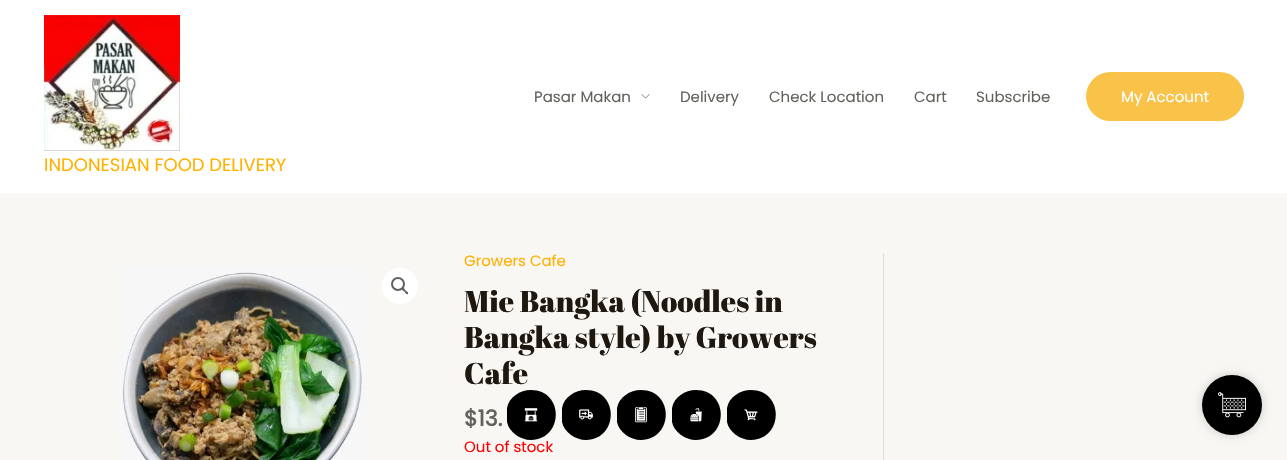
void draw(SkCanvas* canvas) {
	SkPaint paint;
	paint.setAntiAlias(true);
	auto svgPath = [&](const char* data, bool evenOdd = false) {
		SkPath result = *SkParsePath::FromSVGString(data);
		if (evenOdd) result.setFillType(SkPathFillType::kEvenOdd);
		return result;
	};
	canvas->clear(0xfff8f7f3);
	paint.setColor(0xffffffff);
	canvas->drawRect(SkRect::MakeXYWH(0, 0, 1287, 193), paint);
	SkFont f1(fontMgr->matchFamilyStyle("Poppins", SkFontStyle::Normal()), 15);
	f1.setSubpixel(true);
	paint.setColor(0xff62615c);
	canvas->drawString("Pasar Makan", 534, 102, f1, paint);
	canvas->drawImageRect(SkImages::DeferredFromEncodedData(SkData::MakeFromFileName("img1.png")), SkRect::MakeXYWH(641, 94, 9, 5), SkSamplingOptions());
	canvas->drawString("Delivery", 680, 102, f1, paint);
	canvas->drawString("Check Location", 769, 102, f1, paint);
	canvas->drawString("Cart", 914, 102, f1, paint);
	canvas->drawString("Subscribe", 976, 102, f1, paint);
	paint.setColor(0xfff9c349);
	canvas->drawRoundRect(SkRect::MakeXYWH(1086, 72, 158, 49), 24.5, 24.5, paint);
	paint.setColor(0xffffffff);
	canvas->drawString("My Account", 1121, 102, f1, paint);
	canvas->drawImageRect(SkImages::DeferredFromEncodedData(SkData::MakeFromFileName("img2.png")), SkRect::MakeXYWH(44, 15, 136, 136), SkSamplingOptions());
	SkFont f2(fontMgr->matchFamilyStyle("Poppins", SkFontStyle::Normal()), 18);
	f2.setSubpixel(true);
	paint.setColor(0xffffb100);
	canvas->drawString("INDONESIAN FOOD DELIVERY", 44, 171, f2, paint);
	paint.setColor(0xffdddddd);
	canvas->drawRect(SkRect::MakeXYWH(883, 253, 1, 207), paint);
	canvas->drawImageRect(SkImages::DeferredFromEncodedData(SkData::MakeFromFileName("img3.png")), SkRect::MakeXYWH(117, 266, 249, 194), SkSamplingOptions());
	paint.setColor(0xffffffff);
	canvas->drawCircle(400, 286, 18, paint);
	paint.setStroke(true);
	paint.setStrokeWidth(2);
	paint.setColor(0xff62615c);
	canvas->drawCircle(398, 284, 6, paint);
	paint.setStroke(false);
	canvas->drawPath(svgPath("M402 288C403.5 287 405 289.5 405.5 290.5C406.5 291 409 292.5 408 294C406.5 295 405 292.5 404.5 291.5C403.5 291 401 289.5 402 288Z"), paint);
	paint.setColor(0xffffb100);
	canvas->drawString("Growers Cafe", 464, 266, f1, paint);
	SkFont f3(fontMgr->matchFamilyStyle("Abril Fatface", SkFontStyle::Normal()), 30);
	f3.setSubpixel(true);
	paint.setColor(0xff1e1810);
	canvas->drawString("Mie Bangka (Noodles in", 464, 312, f3, paint);
	canvas->drawString("Bangka style) by Growers", 464, 348, f3, paint);
	canvas->drawString("Cafe", 464, 384, f3, paint);
	SkFont f4(fontMgr->matchFamilyStyle("Poppins", SkFontStyle::Bold()), 22);
	f4.setSubpixel(true);
	paint.setColor(0xff62615c);
	canvas->drawString("$13.", 464, 426, f4, paint);
	paint.setColor(0xffff0000);
	canvas->drawString("Out of stock", 464, 452, f1, paint);
	paint.setColor(0x30000000);
	paint.setMaskFilter(SkMaskFilter::MakeBlur(kNormal_SkBlurStyle, 5));
	canvas->drawRoundRect(SkRect::MakeXYWH(1202, 375, 60, 60), 30, 30, paint);
	paint.setMaskFilter(nullptr);
	paint.setColor(0xff000000);
	canvas->drawCircle(1232, 405, 30, paint);
	canvas->drawImageRect(SkImages::DeferredFromEncodedData(SkData::MakeFromFileName("img4.png")), SkRect::MakeXYWH(1218, 392, 28, 26), SkSamplingOptions());
	canvas->drawPath(svgPath("M531 390C520 390 509 397 507 408V422C509 432 520 440 531 440C564 439 564 390 531 390Z"), paint);
	canvas->drawImageRect(SkImages::DeferredFromEncodedData(SkData::MakeFromFileName("img5.png")), SkRect::MakeXYWH(524, 408, 14, 14), SkSamplingOptions());
	canvas->drawPath(svgPath("M586 390C575 390 564 397 562 408V422C564 432 575 440 586 440C619 439 619 390 586 390Z"), paint);
	canvas->drawImageRect(SkImages::DeferredFromEncodedData(SkData::MakeFromFileName("img6.png")), SkRect::MakeXYWH(579, 409, 14, 11), SkSamplingOptions());
	canvas->drawPath(svgPath("M641 390C630 390 619 397 617 408V422C619 432 630 440 641 440C674 439 674 390 641 390Z"), paint);
	canvas->drawImageRect(SkImages::DeferredFromEncodedData(SkData::MakeFromFileName("img7.png")), SkRect::MakeXYWH(635, 407, 12, 16), SkSamplingOptions());
	canvas->drawPath(svgPath("M696 390C685 390 674 397 672 408V422C674 432 685 440 696 440C729 439 729 390 696 390Z"), paint);
	canvas->drawImageRect(SkImages::DeferredFromEncodedData(SkData::MakeFromFileName("img8.png")), SkRect::MakeXYWH(690, 408, 12, 14), SkSamplingOptions());
	canvas->drawPath(svgPath("M751 390C740 390 729 397 727 408V422C729 432 740 440 751 440C784 439 784 390 751 390Z"), paint);
	canvas->drawImageRect(SkImages::DeferredFromEncodedData(SkData::MakeFromFileName("img9.png")), SkRect::MakeXYWH(744, 409, 14, 12), SkSamplingOptions());
}
